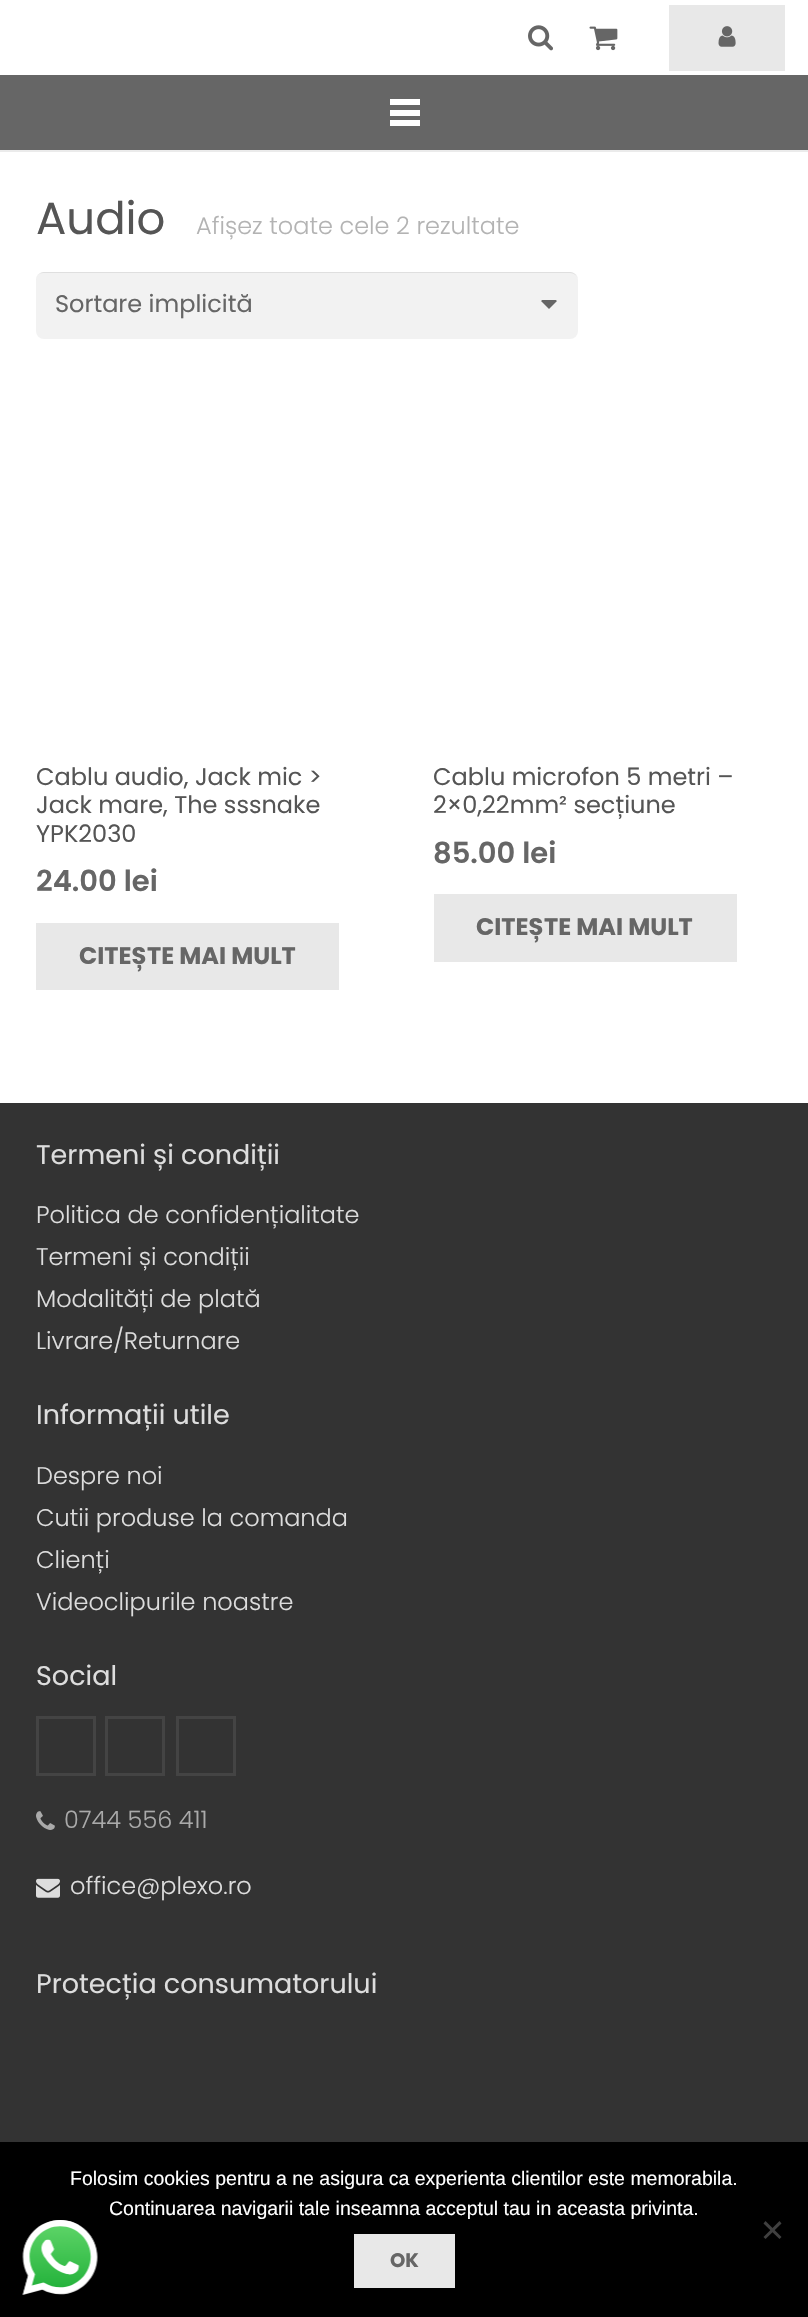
void draw(SkCanvas* canvas) {
	SkPaint paint;
	paint.setAntiAlias(true);
	auto svgPath = [&](const char* data, bool evenOdd = false) {
		SkPath result = *SkParsePath::FromSVGString(data);
		if (evenOdd) result.setFillType(SkPathFillType::kEvenOdd);
		return result;
	};
	canvas->clear(0xffffffff);
	canvas->drawImageRect(SkImages::DeferredFromEncodedData(SkData::MakeFromFileName("img1.png")), SkRect::MakeXYWH(528, 25, 25, 26), SkSamplingOptions());
	canvas->drawImageRect(SkImages::DeferredFromEncodedData(SkData::MakeFromFileName("img2.png")), SkRect::MakeXYWH(589, 26, 29, 25), SkSamplingOptions());
	paint.setColor(0xffe8e8e8);
	canvas->drawRect(SkRect::MakeXYWH(669, 5, 116, 66), paint);
	canvas->drawImageRect(SkImages::DeferredFromEncodedData(SkData::MakeFromFileName("img3.png")), SkRect::MakeXYWH(718, 26, 18, 21), SkSamplingOptions());
	paint.setColor(0xffebebeb);
	canvas->drawPath(svgPath("M0 150V152H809V77H808V150Z"), paint);
	paint.setColor(0xff666666);
	canvas->drawRect(SkRect::MakeXYWH(0, 75, 808, 75), paint);
	paint.setColor(0xffffffff);
	canvas->drawRect(SkRect::MakeXYWH(390, 110, 30, 6), paint);
	canvas->drawRect(SkRect::MakeXYWH(390, 99, 30, 6), paint);
	canvas->drawRect(SkRect::MakeXYWH(390, 120, 30, 6), paint);
	SkFont f1(fontMgr->matchFamilyStyle("Poppins", SkFontStyle::Normal()), 45);
	f1.setSubpixel(true);
	paint.setColor(0xff555555);
	canvas->drawString("Audio", 36, 234, f1, paint);
	SkFont f2(fontMgr->matchFamilyStyle("Poppins", SkFontStyle(300, SkFontStyle::kNormal_Width, SkFontStyle::kUpright_Slant)), 24);
	f2.setSubpixel(true);
	paint.setColor(0xffb3b3b3);
	canvas->drawString("Afișez toate cele 2 rezultate", 196, 234, f2, paint);
	paint.setColor(0xfff2f2f2);
	canvas->drawRoundRect(SkRect::MakeXYWH(36, 272, 542, 67), 8, 8, paint);
	paint.setColor(0xffdfdfdf);
	canvas->drawPath(svgPath("M43 273H570C574 273 578 276 578 280C578 276 574 272 570 272H44C40 272 36 276 36 280C36 276 39 273 43 273Z"), paint);
	SkFont f3(fontMgr->matchFamilyStyle("Poppins", SkFontStyle::Normal()), 24);
	f3.setSubpixel(true);
	paint.setColor(0xff666666);
	canvas->drawString("Sortare implicită", 55, 312, f3, paint);
	canvas->drawPath(svgPath("M543 300C542 300 541.5 300.5 541 301L549 309L557 301C556.5 300.5 556 300 555 300Z"), paint);
	paint.setColor(0xff555555);
	canvas->drawString("Cablu audio, Jack mic >", 36, 785, f3, paint);
	canvas->drawString("Jack mare, The sssnake", 36, 813, f3, paint);
	canvas->drawString("YPK2030", 36, 842, f3, paint);
	SkFont f4(fontMgr->matchFamilyStyle("Poppins", SkFontStyle(600, SkFontStyle::kNormal_Width, SkFontStyle::kUpright_Slant)), 29);
	f4.setSubpixel(true);
	paint.setColor(0xff666666);
	canvas->drawString("24.00 lei", 36, 891, f4, paint);
	paint.setColor(0xffe8e8e8);
	canvas->drawRect(SkRect::MakeXYWH(36, 923, 303, 67), paint);
	SkFont f5(fontMgr->matchFamilyStyle("Poppins", SkFontStyle::Bold()), 24);
	f5.setSubpixel(true);
	paint.setColor(0xff666666);
	canvas->drawString("CITEȘTE MAI MULT", 79, 964, f5, paint);
	paint.setColor(0xff555555);
	canvas->drawString("Cablu microfon 5 metri –", 433, 785, f3, paint);
	canvas->drawString("2×0,22mm² secțiune", 433, 813, f3, paint);
	paint.setColor(0xff666666);
	canvas->drawString("85.00 lei", 433, 863, f4, paint);
	paint.setColor(0xffe8e8e8);
	canvas->drawRect(SkRect::MakeXYWH(434, 894, 303, 68), paint);
	paint.setColor(0xff666666);
	canvas->drawString("CITEȘTE MAI MULT", 476, 935, f5, paint);
	paint.setColor(0xff333333);
	canvas->drawRect(SkRect::MakeXYWH(0, 1103, 808, 1039), paint);
	SkFont f6(fontMgr->matchFamilyStyle("Poppins", SkFontStyle::Normal()), 27);
	f6.setSubpixel(true);
	paint.setColor(0xffdddddd);
	canvas->drawString("Termeni și condiții", 36, 1164, f6, paint);
	canvas->drawString("Politica de confidențialitate", 36, 1223, f2, paint);
	canvas->drawString("Termeni și condiții", 36, 1265, f2, paint);
	canvas->drawString("Modalități de plată", 36, 1307, f2, paint);
	canvas->drawString("Livrare/Returnare", 36, 1349, f2, paint);
	canvas->drawString("Informații utile", 36, 1424, f6, paint);
	canvas->drawString("Despre noi", 36, 1484, f2, paint);
	canvas->drawString("Cutii produse la comanda", 36, 1526, f2, paint);
	canvas->drawString("Clienți", 36, 1568, f2, paint);
	canvas->drawString("Videoclipurile noastre", 36, 1610, f2, paint);
	canvas->drawString("Social", 36, 1685, f6, paint);
	paint.setStroke(true);
	paint.setStrokeWidth(3);
	paint.setColor(0xff444444);
	canvas->drawRect(SkRect::MakeXYWH(37.5, 1717.5, 57, 57), paint);
	canvas->drawRect(SkRect::MakeXYWH(106.5, 1717.5, 57, 57), paint);
	canvas->drawRect(SkRect::MakeXYWH(177.5, 1717.5, 57, 57), paint);
	canvas->drawImageRect(SkImages::DeferredFromEncodedData(SkData::MakeFromFileName("img4.png")), SkRect::MakeXYWH(36, 1811, 19, 19), SkSamplingOptions());
	paint.setStroke(false);
	paint.setColor(0xffaaaaaa);
	canvas->drawString("0744 556 411", 64, 1828, f2, paint);
	canvas->drawImageRect(SkImages::DeferredFromEncodedData(SkData::MakeFromFileName("img5.png")), SkRect::MakeXYWH(36, 1878, 24, 20), SkSamplingOptions());
	paint.setColor(0xffdddddd);
	canvas->drawString("office@plexo.ro", 70, 1894, f2, paint);
	canvas->drawString("Protecția consumatorului", 36, 1993, f6, paint);
	paint.setColor(0xff000000);
	canvas->drawRect(SkRect::MakeXYWH(0, 2142, 808, 175), paint);
	canvas->drawImageRect(SkImages::DeferredFromEncodedData(SkData::MakeFromFileName("img6.png")), SkRect::MakeXYWH(22, 2220, 76, 75), SkSamplingOptions());
	SkFont f7(fontMgr->matchFamilyStyle("Liberation Sans", SkFontStyle::Normal()), 19.5);
	f7.setSubpixel(true);
	paint.setColor(0xffffffff);
	canvas->drawString("Folosim cookies pentru a ne asigura ca experienta clientilor este memorabila.", 70, 2185, f7, paint);
	canvas->drawString("Continuarea navigarii tale inseamna acceptul tau in aceasta privinta.", 109, 2215, f7, paint);
	paint.setColor(0xff404040);
	canvas->drawPath(svgPath("M779.5 2221L781.5 2223.5L765.5 2239L763.5 2237Z"), paint);
	canvas->drawPath(svgPath("M763.5 2223.5L765.5 2221L781.5 2237L779.5 2239Z"), paint);
	paint.setColor(0xffe8e8e8);
	canvas->drawRect(SkRect::MakeXYWH(354, 2234, 101, 54), paint);
	SkFont f8(fontMgr->matchFamilyStyle("Poppins", SkFontStyle::Bold()), 19.5);
	f8.setSubpixel(true);
	paint.setColor(0xff666666);
	canvas->drawString("OK", 390, 2267, f8, paint);
}
